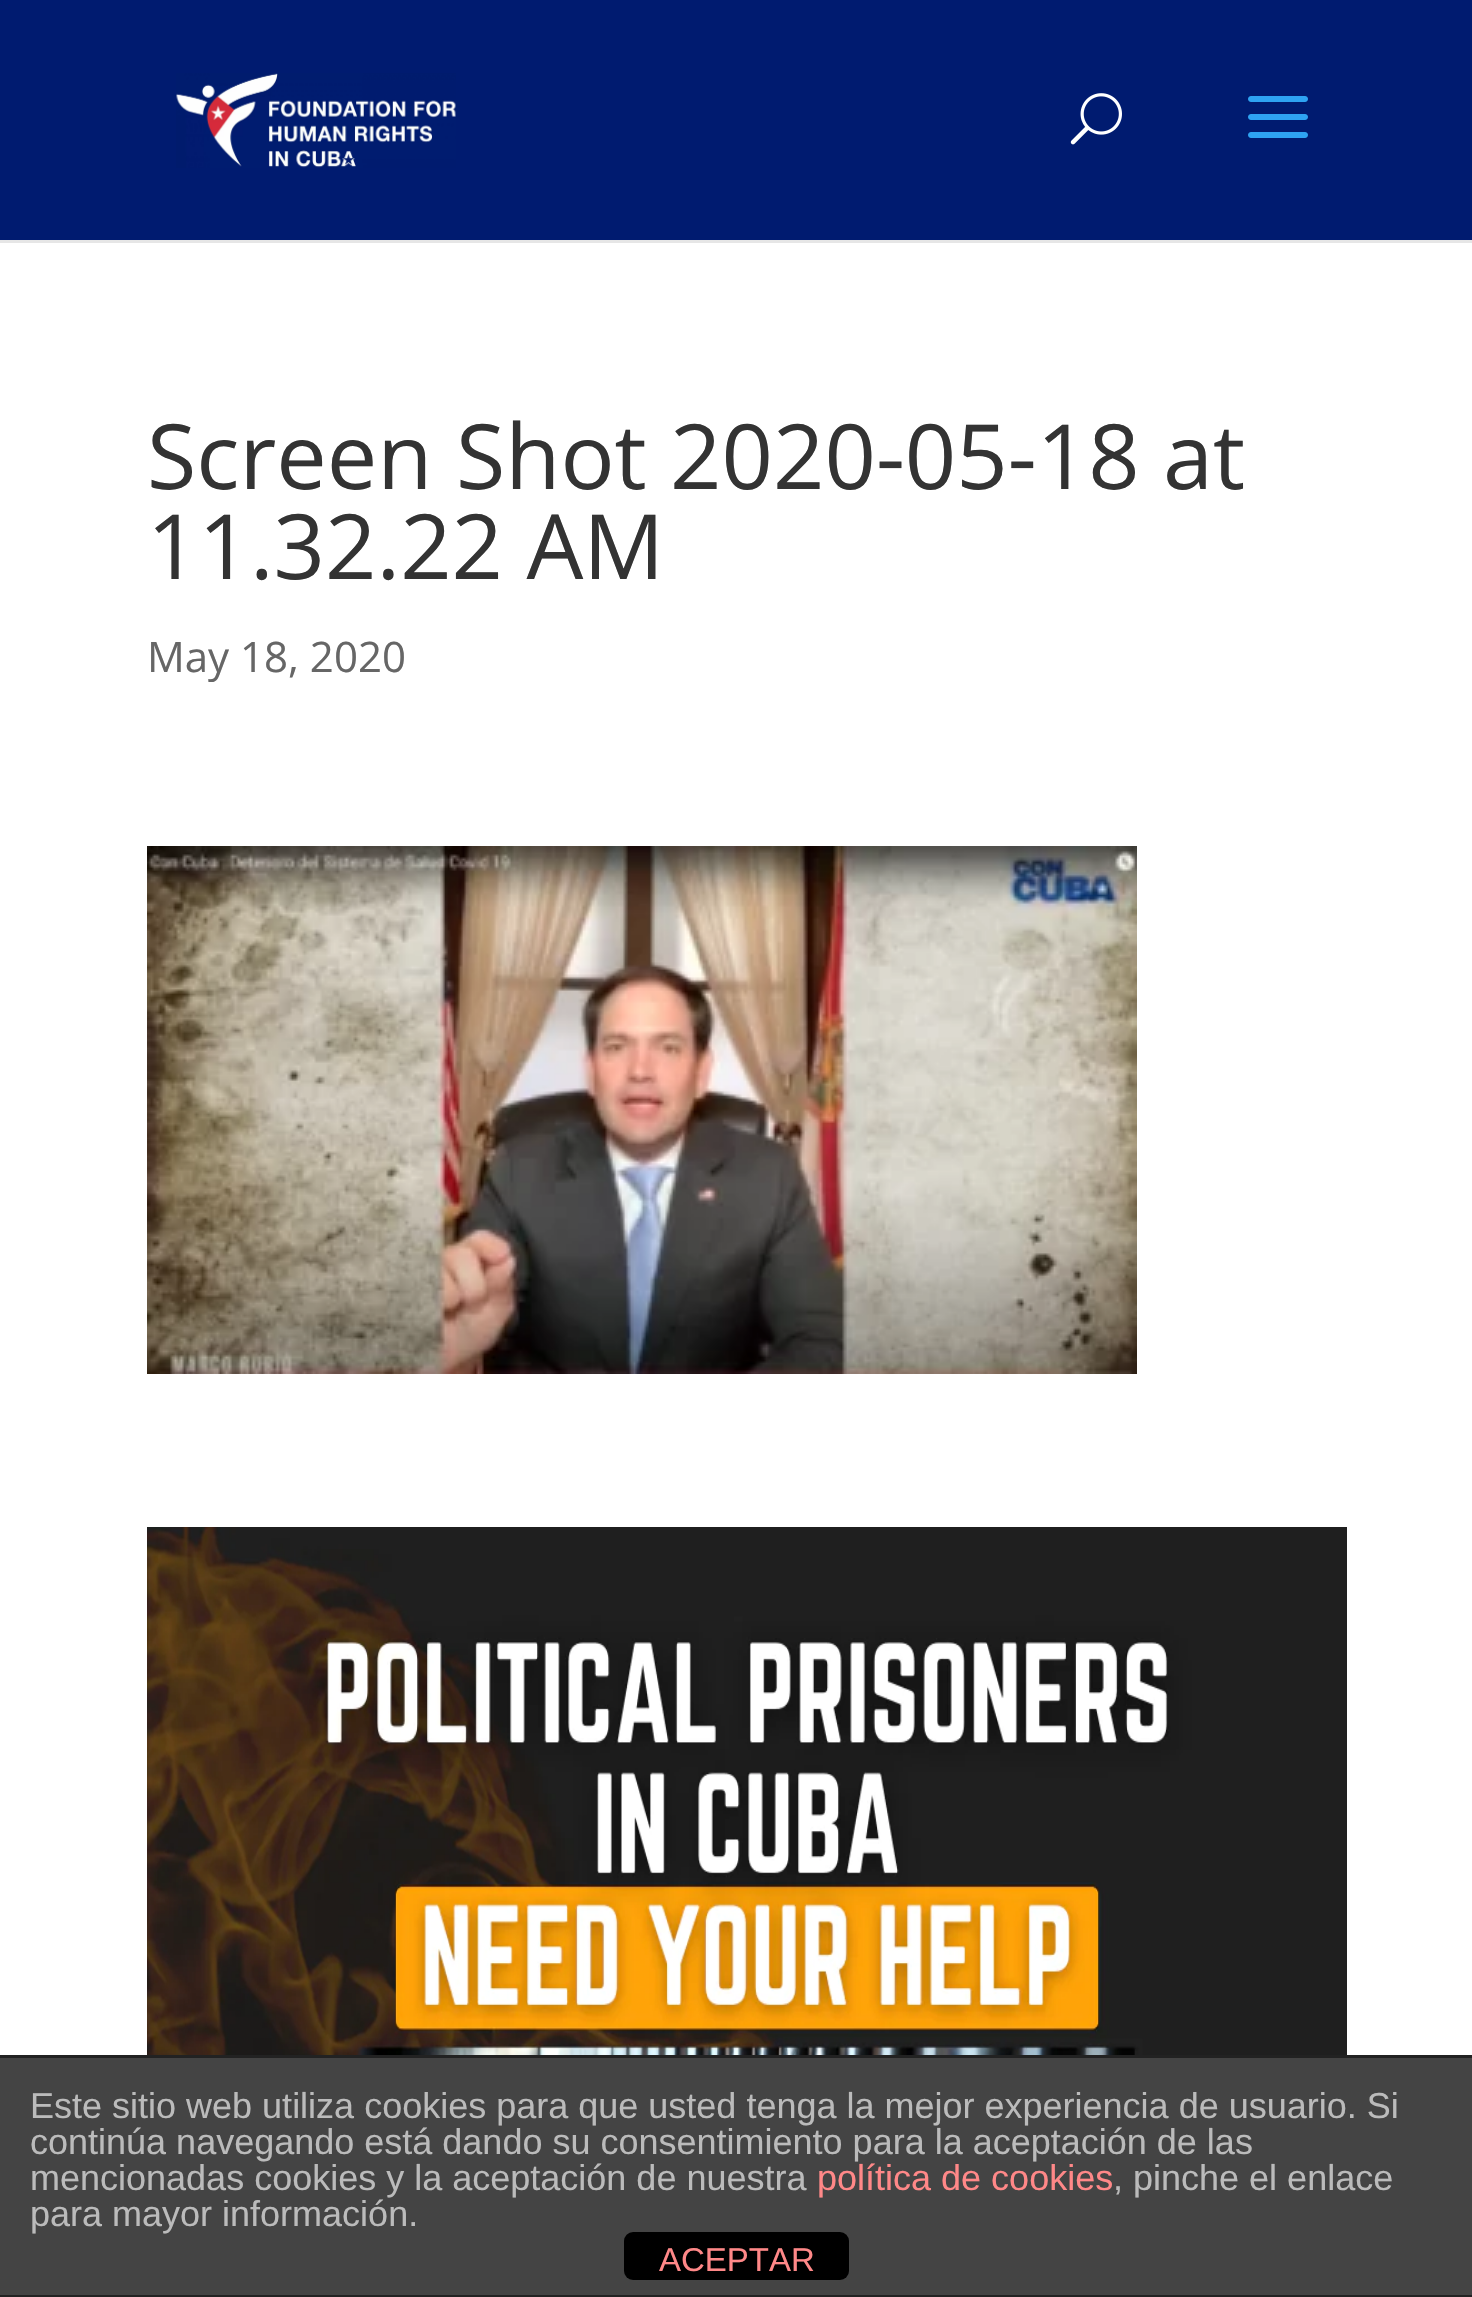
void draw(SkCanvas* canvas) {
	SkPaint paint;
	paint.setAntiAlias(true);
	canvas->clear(0xffffffff);
	paint.setColor(0xffe6e6e6);
	canvas->drawRect(SkRect::MakeXYWH(0, 240, 1472, 3), paint);
	paint.setColor(0xff001b70);
	canvas->drawRect(SkRect::MakeXYWH(0, 0, 1472, 240), paint);
	canvas->drawImageRect(SkImages::DeferredFromEncodedData(SkData::MakeFromFileName("img1.png")), SkRect::MakeXYWH(176, 73, 280, 95), SkSamplingOptions());
	canvas->drawImageRect(SkImages::DeferredFromEncodedData(SkData::MakeFromFileName("img2.png")), SkRect::MakeXYWH(1070, 93, 52, 52), SkSamplingOptions());
	canvas->drawImageRect(SkImages::DeferredFromEncodedData(SkData::MakeFromFileName("img3.png")), SkRect::MakeXYWH(1248, 96, 60, 42), SkSamplingOptions());
	SkFont f1(fontMgr->matchFamilyStyle("Open Sans", SkFontStyle::Normal()), 90);
	f1.setSubpixel(true);
	paint.setColor(0xff333333);
	canvas->drawString("Screen Shot 2020-05-18 at", 147, 489, f1, paint);
	canvas->drawString("11.32.22 AM", 147, 579, f1, paint);
	SkFont f2(fontMgr->matchFamilyStyle("Open Sans", SkFontStyle::Normal()), 42);
	f2.setSubpixel(true);
	paint.setColor(0xff666666);
	canvas->drawString("May 18, 2020", 147, 672, f2, paint);
	canvas->drawImageRect(SkImages::DeferredFromEncodedData(SkData::MakeFromFileName("img4.png")), SkRect::MakeXYWH(147, 846, 990, 528), SkSamplingOptions());
	canvas->drawImageRect(SkImages::DeferredFromEncodedData(SkData::MakeFromFileName("img5.png")), SkRect::MakeXYWH(147, 1527, 1200, 528), SkSamplingOptions());
	paint.setColor(0xff444444);
	canvas->drawRect(SkRect::MakeXYWH(0, 2058, 1472, 237), paint);
	paint.setColor(0xff222222);
	canvas->drawRect(SkRect::MakeXYWH(0, 2055, 1472, 3), paint);
	canvas->drawRect(SkRect::MakeXYWH(0, 2295, 1472, 2), paint);
	SkFont f3(fontMgr->matchFamilyStyle("Liberation Sans", SkFontStyle::Normal()), 36);
	f3.setSubpixel(true);
	paint.setColor(0xffbbbbbb);
	canvas->drawString("Este sitio web utiliza cookies para que usted tenga la mejor experiencia de usuario. Si", 30, 2118, f3, paint);
	canvas->drawString("continúa navegando está dando su consentimiento para la aceptación de las", 30, 2154, f3, paint);
	canvas->drawString("mencionadas cookies y la aceptación de nuestra", 30, 2190, f3, paint);
	paint.setColor(0xffff8888);
	canvas->drawString("política de cookies", 817, 2190, f3, paint);
	paint.setColor(0xffbbbbbb);
	canvas->drawString(", pinche el enlace", 1113, 2190, f3, paint);
	canvas->drawString("para mayor información.", 30, 2226, f3, paint);
	paint.setColor(0xff000000);
	canvas->drawRoundRect(SkRect::MakeXYWH(624, 2232, 225, 48), 9, 9, paint);
	SkFont f4(fontMgr->matchFamilyStyle("Liberation Sans", SkFontStyle::Normal()), 33);
	f4.setSubpixel(true);
	paint.setColor(0xffff8888);
	canvas->drawString("ACEPTAR", 659, 2271, f4, paint);
}
